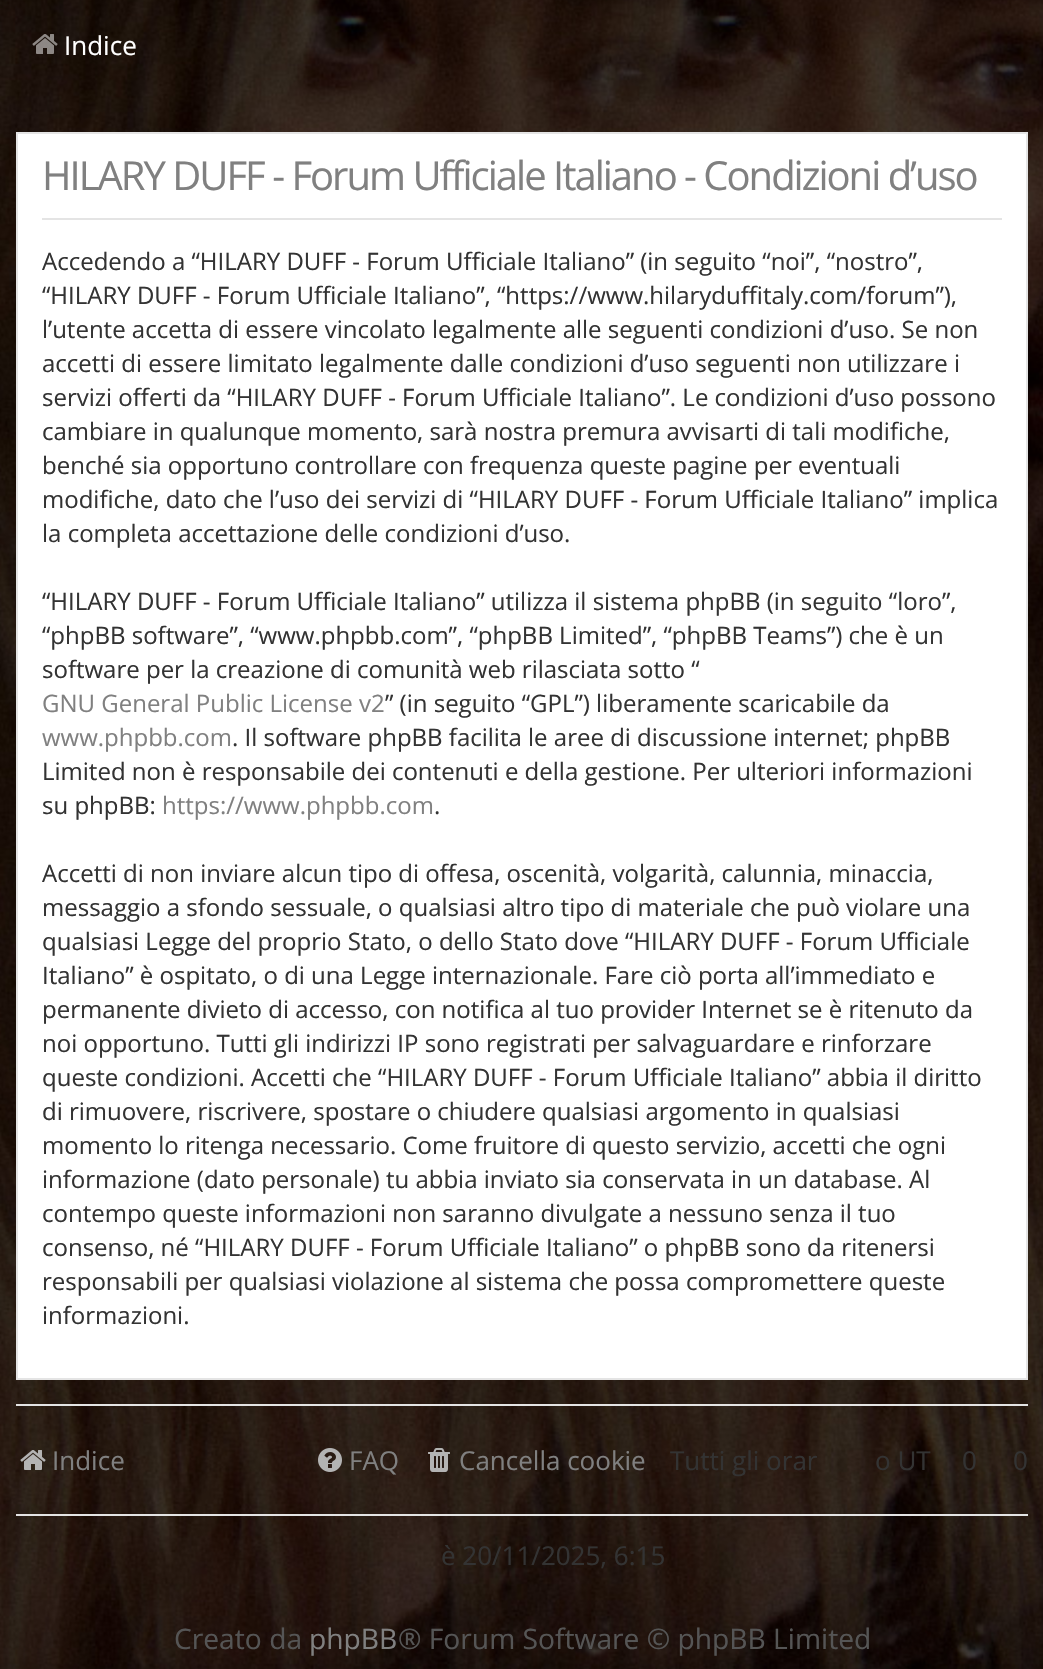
void draw(SkCanvas* canvas) {
	SkPaint paint;
	paint.setAntiAlias(true);
	auto spacedText = [&](const char* s, float x, float y, const SkFont& font, const SkPaint& ink, float letter, float word) {
		std::vector<SkGlyphID> glyphs(font.countText(s, strlen(s), SkTextEncoding::kUTF8));
		std::vector<float> xs(glyphs.size());
		font.textToGlyphs(s, strlen(s), SkTextEncoding::kUTF8, glyphs);
		font.getXPos(glyphs, xs, x);
		float extra = 0;
		for (size_t i = 0; i < glyphs.size(); i++) {
			xs[i] += extra;
			extra += letter + word * (glyphs[i] == font.unicharToGlyph(' '));
		}
		canvas->drawTextBlob(SkTextBlob::MakeFromPosHGlyphs(glyphs, xs, y, font), 0, 0, ink);
	};
	canvas->clear(0xffffffff);
	canvas->drawImageRect(SkImages::DeferredFromEncodedData(SkData::MakeFromFileName("img1.png")), SkRect::MakeXYWH(0, 0, 1043, 1669), SkSamplingOptions());
	canvas->drawImageRect(SkImages::DeferredFromEncodedData(SkData::MakeFromFileName("img2.png")), SkRect::MakeXYWH(32, 34, 26, 20), SkSamplingOptions());
	SkFont f1(fontMgr->matchFamilyStyle("Open Sans", SkFontStyle::Normal()), 26);
	f1.setSubpixel(true);
	paint.setColor(0xffffffff);
	canvas->drawString("Indice", 64, 55, f1, paint);
	canvas->drawRect(SkRect::MakeXYWH(17, 133, 1010, 1246), paint);
	paint.setStroke(true);
	paint.setStrokeWidth(2);
	paint.setColor(0xffe4e4e4);
	canvas->drawRect(SkRect::MakeXYWH(17, 133, 1010, 1246), paint);
	paint.setStroke(false);
	canvas->drawRect(SkRect::MakeXYWH(42, 218, 960, 2), paint);
	SkFont f2(fontMgr->matchFamilyStyle("Open Sans", SkFontStyle::Normal()), 40);
	f2.setSubpixel(true);
	paint.setColor(0xff808080);
	spacedText("HILARY DUFF - Forum Ufficiale Italiano - Condizioni d’uso", 42, 190, f2, paint, -2, 0);
	SkFont f3(fontMgr->matchFamilyStyle("Open Sans", SkFontStyle::Normal()), 24);
	f3.setSubpixel(true);
	paint.setColor(0xff333333);
	canvas->drawString("Accedendo a “HILARY DUFF - Forum Ufficiale Italiano” (in seguito “noi”, “nostro”,", 42, 270, f3, paint);
	canvas->drawString("“HILARY DUFF - Forum Ufficiale Italiano”, “https://www.hilaryduffitaly.com/forum”),", 42, 304, f3, paint);
	canvas->drawString("l’utente accetta di essere vincolato legalmente alle seguenti condizioni d’uso. Se non", 42, 338, f3, paint);
	canvas->drawString("accetti di essere limitato legalmente dalle condizioni d’uso seguenti non utilizzare i", 42, 372, f3, paint);
	canvas->drawString("servizi offerti da “HILARY DUFF - Forum Ufficiale Italiano”. Le condizioni d’uso possono", 42, 406, f3, paint);
	canvas->drawString("cambiare in qualunque momento, sarà nostra premura avvisarti di tali modifiche,", 42, 440, f3, paint);
	canvas->drawString("benché sia opportuno controllare con frequenza queste pagine per eventuali", 42, 474, f3, paint);
	canvas->drawString("modifiche, dato che l’uso dei servizi di “HILARY DUFF - Forum Ufficiale Italiano” implica", 42, 508, f3, paint);
	canvas->drawString("la completa accettazione delle condizioni d’uso.", 42, 542, f3, paint);
	canvas->drawString("“HILARY DUFF - Forum Ufficiale Italiano” utilizza il sistema phpBB (in seguito “loro”,", 42, 610, f3, paint);
	canvas->drawString("“phpBB software”, “www.phpbb.com”, “phpBB Limited”, “phpBB Teams”) che è un", 42, 644, f3, paint);
	canvas->drawString("software per la creazione di comunità web rilasciata sotto “", 42, 678, f3, paint);
	paint.setColor(0xff808080);
	canvas->drawString("GNU General Public License v2", 42, 712, f3, paint);
	paint.setColor(0xff333333);
	canvas->drawString("” (in seguito “GPL”) liberamente scaricabile da", 385, 712, f3, paint);
	paint.setColor(0xff808080);
	canvas->drawString("www.phpbb.com", 42, 746, f3, paint);
	paint.setColor(0xff333333);
	canvas->drawString(". Il software phpBB facilita le aree di discussione internet; phpBB", 232, 746, f3, paint);
	canvas->drawString("Limited non è responsabile dei contenuti e della gestione. Per ulteriori informazioni", 42, 780, f3, paint);
	canvas->drawString("su phpBB:", 42, 814, f3, paint);
	paint.setColor(0xff808080);
	canvas->drawString("https://www.phpbb.com", 162, 814, f3, paint);
	paint.setColor(0xff333333);
	canvas->drawString(".", 434, 814, f3, paint);
	canvas->drawString("Accetti di non inviare alcun tipo di offesa, oscenità, volgarità, calunnia, minaccia,", 42, 882, f3, paint);
	canvas->drawString("messaggio a sfondo sessuale, o qualsiasi altro tipo di materiale che può violare una", 42, 916, f3, paint);
	canvas->drawString("qualsiasi Legge del proprio Stato, o dello Stato dove “HILARY DUFF - Forum Ufficiale", 42, 950, f3, paint);
	canvas->drawString("Italiano” è ospitato, o di una Legge internazionale. Fare ciò porta all’immediato e", 42, 984, f3, paint);
	canvas->drawString("permanente divieto di accesso, con notifica al tuo provider Internet se è ritenuto da", 42, 1018, f3, paint);
	canvas->drawString("noi opportuno. Tutti gli indirizzi IP sono registrati per salvaguardare e rinforzare", 42, 1052, f3, paint);
	canvas->drawString("queste condizioni. Accetti che “HILARY DUFF - Forum Ufficiale Italiano” abbia il diritto", 42, 1086, f3, paint);
	canvas->drawString("di rimuovere, riscrivere, spostare o chiudere qualsiasi argomento in qualsiasi", 42, 1120, f3, paint);
	canvas->drawString("momento lo ritenga necessario. Come fruitore di questo servizio, accetti che ogni", 42, 1154, f3, paint);
	canvas->drawString("informazione (dato personale) tu abbia inviato sia conservata in un database. Al", 42, 1188, f3, paint);
	canvas->drawString("contempo queste informazioni non saranno divulgate a nessuno senza il tuo", 42, 1222, f3, paint);
	canvas->drawString("consenso, né “HILARY DUFF - Forum Ufficiale Italiano” o phpBB sono da ritenersi", 42, 1256, f3, paint);
	canvas->drawString("responsabili per qualsiasi violazione al sistema che possa compromettere queste", 42, 1290, f3, paint);
	canvas->drawString("informazioni.", 42, 1324, f3, paint);
	paint.setColor(0xffe4e4e4);
	canvas->drawRect(SkRect::MakeXYWH(16, 1404, 1012, 2), paint);
	canvas->drawRect(SkRect::MakeXYWH(16, 1514, 1012, 2), paint);
	canvas->drawImageRect(SkImages::DeferredFromEncodedData(SkData::MakeFromFileName("img3.png")), SkRect::MakeXYWH(20, 1450, 26, 20), SkSamplingOptions());
	paint.setColor(0xff808080);
	canvas->drawString("Indice", 52, 1470, f1, paint);
	canvas->drawImageRect(SkImages::DeferredFromEncodedData(SkData::MakeFromFileName("img4.png")), SkRect::MakeXYWH(318, 1448, 24, 24), SkSamplingOptions());
	canvas->drawString("FAQ", 349, 1470, f1, paint);
	canvas->drawImageRect(SkImages::DeferredFromEncodedData(SkData::MakeFromFileName("img5.png")), SkRect::MakeXYWH(428, 1448, 22, 24), SkSamplingOptions());
	canvas->drawString("Cancella cookie", 459, 1470, f1, paint);
	paint.setColor(0xff333333);
	canvas->drawString("Tutti gli orar", 670, 1470, f1, paint);
	canvas->drawString("o UT", 875, 1470, f1, paint);
	canvas->drawString("0", 962, 1470, f1, paint);
	canvas->drawString("0", 1013, 1470, f1, paint);
	canvas->drawString("è 20/11/2025, 6:15", 441, 1565, f1, paint);
	SkFont f4(fontMgr->matchFamilyStyle("Open Sans", SkFontStyle::Normal()), 28.2);
	f4.setSubpixel(true);
	paint.setColor(0xff555555);
	canvas->drawString("Creato da", 174, 1649, f4, paint);
	paint.setColor(0xff808080);
	canvas->drawString("phpBB", 309, 1649, f4, paint);
	paint.setColor(0xff555555);
	canvas->drawString("® Forum Software © phpBB Limited", 398, 1649, f4, paint);
}
